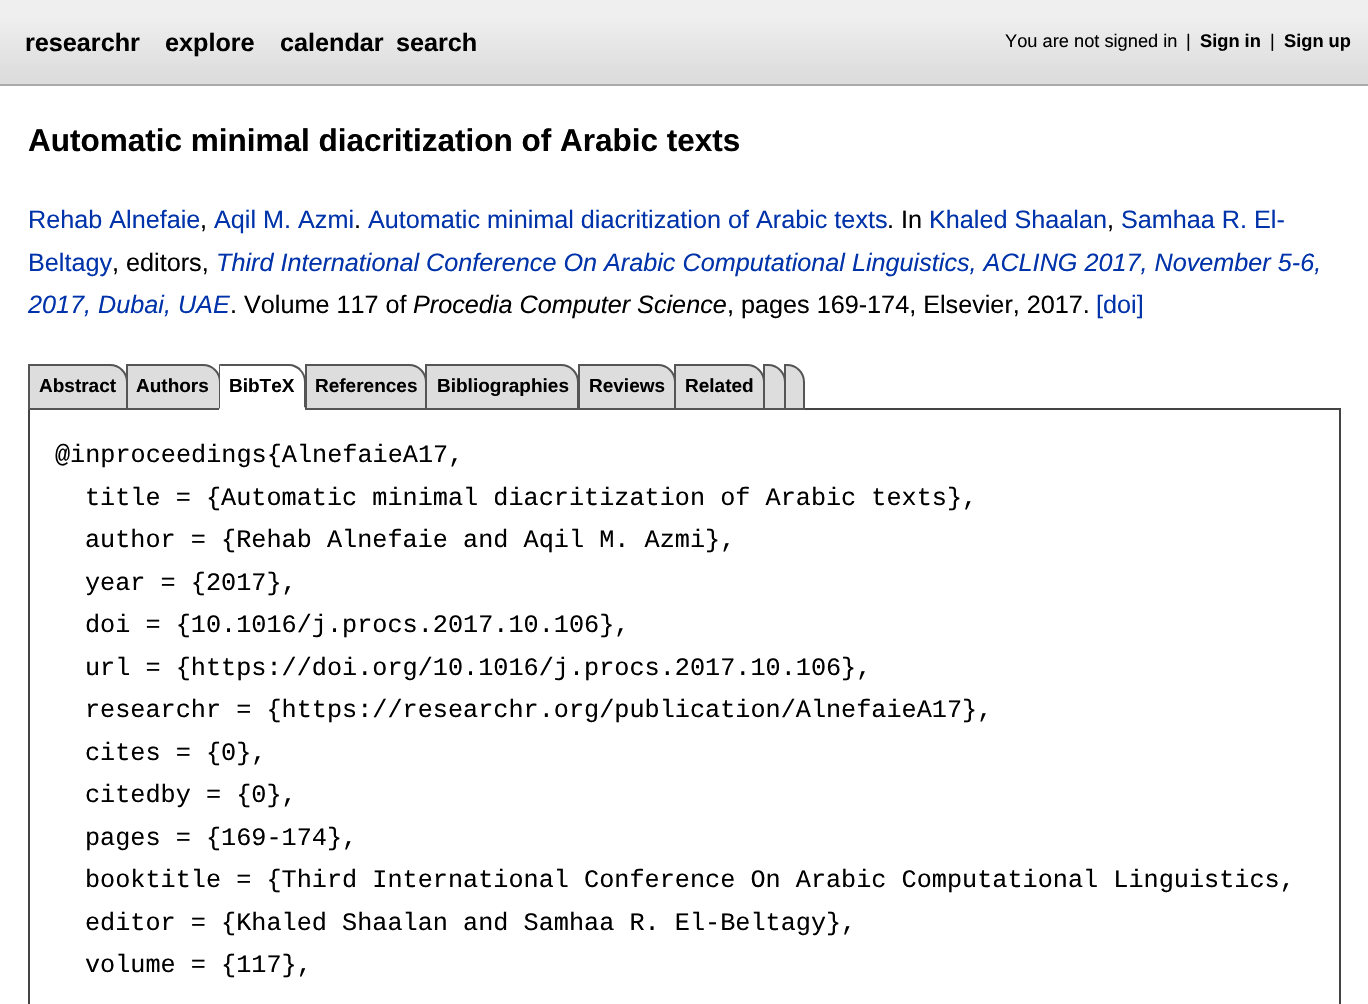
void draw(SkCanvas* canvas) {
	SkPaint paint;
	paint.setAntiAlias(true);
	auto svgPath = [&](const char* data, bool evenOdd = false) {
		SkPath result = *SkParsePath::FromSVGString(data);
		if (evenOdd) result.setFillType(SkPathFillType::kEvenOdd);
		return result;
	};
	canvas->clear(0xffffffff);
	{
		const SkColor colors[] = {0xffdddddd, 0xffefefef};
		const float stops[] = {0.1, 0.8};
		const SkPoint ends[] = {{0, 84}, {0, 0}};
		paint.setShader(SkGradientShader::MakeLinear(ends, colors, stops, 2, SkTileMode::kClamp));
		paint.setAlpha(255);
	}
	canvas->drawRect(SkRect::MakeXYWH(0, 0, 1368, 84), paint);
	paint.setShader(nullptr);
	paint.setColor(0xffaaaaaa);
	canvas->drawRect(SkRect::MakeXYWH(0, 84, 1368, 2), paint);
	SkFont f1(fontMgr->matchFamilyStyle("Liberation Sans", SkFontStyle::Bold()), 25.2);
	f1.setSubpixel(true);
	paint.setColor(0xff000000);
	canvas->drawString("researchr", 25, 51, f1, paint);
	canvas->drawString("explore", 165, 51, f1, paint);
	canvas->drawString("calendar", 280, 51, f1, paint);
	canvas->drawString("search", 396, 51, f1, paint);
	SkFont f2(fontMgr->matchFamilyStyle("Liberation Sans", SkFontStyle::Normal()), 18.25);
	f2.setSubpixel(true);
	canvas->drawString("You are not signed in", 1005, 47, f2, paint);
	canvas->drawString("|", 1186, 47, f2, paint);
	SkFont f3(fontMgr->matchFamilyStyle("Liberation Sans", SkFontStyle::Bold()), 18.25);
	f3.setSubpixel(true);
	canvas->drawString("Sign in", 1200, 47, f3, paint);
	canvas->drawString("|", 1270, 47, f2, paint);
	canvas->drawString("Sign up", 1284, 47, f3, paint);
	SkFont f4(fontMgr->matchFamilyStyle("Liberation Sans", SkFontStyle::Bold()), 31.5);
	f4.setSubpixel(true);
	canvas->drawString("Automatic minimal diacritization of Arabic texts", 28, 151, f4, paint);
	SkFont f5(fontMgr->matchFamilyStyle("Liberation Sans", SkFontStyle::Normal()), 25.2);
	f5.setSubpixel(true);
	paint.setColor(0xff0033aa);
	canvas->drawString("Rehab Alnefaie", 28, 228, f5, paint);
	paint.setColor(0xff000000);
	canvas->drawString(",", 200, 228, f5, paint);
	paint.setColor(0xff0033aa);
	canvas->drawString("Aqil M. Azmi", 214, 228, f5, paint);
	paint.setColor(0xff000000);
	canvas->drawString(".", 354, 228, f5, paint);
	paint.setColor(0xff0033aa);
	canvas->drawString("Automatic minimal diacritization of Arabic texts", 368, 228, f5, paint);
	paint.setColor(0xff000000);
	canvas->drawString(". In", 887, 228, f5, paint);
	paint.setColor(0xff0033aa);
	canvas->drawString("Khaled Shaalan", 929, 228, f5, paint);
	paint.setColor(0xff000000);
	canvas->drawString(",", 1107, 228, f5, paint);
	paint.setColor(0xff0033aa);
	canvas->drawString("Samhaa R. El-", 1121, 228, f5, paint);
	canvas->drawString("Beltagy", 28, 271, f5, paint);
	paint.setColor(0xff000000);
	canvas->drawString(", editors,", 112, 271, f5, paint);
	SkFont f6(fontMgr->matchFamilyStyle("Liberation Sans", SkFontStyle::Italic()), 25.2);
	f6.setSubpixel(true);
	paint.setColor(0xff0033aa);
	canvas->drawString("Third International Conference On Arabic Computational Linguistics, ACLING 2017, November 5-6,", 216, 271, f6, paint);
	canvas->drawString("2017, Dubai, UAE", 28, 313, f6, paint);
	paint.setColor(0xff000000);
	canvas->drawString(". Volume 117 of", 230, 313, f5, paint);
	canvas->drawString("Procedia Computer Science", 413, 313, f6, paint);
	canvas->drawString(", pages 169-174, Elsevier, 2017.", 727, 313, f5, paint);
	paint.setColor(0xff0033aa);
	canvas->drawString("[doi]", 1096, 313, f5, paint);
	paint.setStroke(true);
	paint.setStrokeWidth(2);
	paint.setColor(0xff444444);
	canvas->drawRect(SkRect::MakeXYWH(29, 409, 1311, 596), paint);
	paint.setStroke(false);
	paint.setColor(0xffdddddd);
	canvas->drawPath(svgPath("M29 365H110C119.5 365 127 372.5 127 382V409H29Z"), paint);
	paint.setStroke(true);
	paint.setColor(0xff555555);
	canvas->drawPath(svgPath("M29 365H110C119.5 365 127 372.5 127 382V409H29Z"), paint);
	SkFont f7(fontMgr->matchFamilyStyle("Liberation Sans", SkFontStyle::Bold()), 19);
	f7.setSubpixel(true);
	paint.setStroke(false);
	paint.setColor(0xff000000);
	canvas->drawString("Abstract", 39, 392, f7, paint);
	paint.setColor(0xffdddddd);
	canvas->drawPath(svgPath("M127 365H203C212.5 365 220 372.5 220 382V409H127Z"), paint);
	paint.setStroke(true);
	paint.setColor(0xff555555);
	canvas->drawPath(svgPath("M127 365H203C212.5 365 220 372.5 220 382V409H127Z"), paint);
	paint.setStroke(false);
	paint.setColor(0xff000000);
	canvas->drawString("Authors", 136, 392, f7, paint);
	paint.setColor(0xffffffff);
	canvas->drawPath(svgPath("M219 364H288C298 364 306 372 306 382V410H219Z"), paint);
	paint.setColor(0xff555555);
	canvas->drawPath(svgPath("M219 364L221 366H289C293 366 297 368 300 371L301 369C298 366 294 364 289 364Z"), paint);
	canvas->drawPath(svgPath("M301 369.5C304 372.5 306 377 306 382V409L304 407V382C304 377.5 302.5 373.5 299.5 370.5Z"), paint);
	paint.setColor(0xffffffff);
	canvas->drawPath(svgPath("M219 410L220 408H304V407L306 409Z"), paint);
	paint.setColor(0xff555555);
	canvas->drawPath(svgPath("M220 366H221L219 364V409L220 408Z"), paint);
	paint.setColor(0xff000000);
	canvas->drawString("BibTeX", 229, 392, f7, paint);
	paint.setColor(0xffdddddd);
	canvas->drawPath(svgPath("M306 365H409C418.5 365 426 372.5 426 382V409H306Z"), paint);
	paint.setStroke(true);
	paint.setColor(0xff555555);
	canvas->drawPath(svgPath("M306 365H409C418.5 365 426 372.5 426 382V409H306Z"), paint);
	paint.setStroke(false);
	paint.setColor(0xff000000);
	canvas->drawString("References", 315, 392, f7, paint);
	paint.setColor(0xffdddddd);
	canvas->drawPath(svgPath("M426 365H561C570.5 365 578 372.5 578 382V409H426Z"), paint);
	paint.setStroke(true);
	paint.setColor(0xff555555);
	canvas->drawPath(svgPath("M426 365H561C570.5 365 578 372.5 578 382V409H426Z"), paint);
	paint.setStroke(false);
	paint.setColor(0xff000000);
	canvas->drawString("Bibliographies", 437, 392, f7, paint);
	paint.setColor(0xffdddddd);
	canvas->drawPath(svgPath("M579 365H658C667.5 365 675 372.5 675 382V409H579Z"), paint);
	paint.setStroke(true);
	paint.setColor(0xff555555);
	canvas->drawPath(svgPath("M579 365H658C667.5 365 675 372.5 675 382V409H579Z"), paint);
	paint.setStroke(false);
	paint.setColor(0xff000000);
	canvas->drawString("Reviews", 589, 392, f7, paint);
	paint.setColor(0xffdddddd);
	canvas->drawPath(svgPath("M675 365H747C756.5 365 764 372.5 764 382V409H675Z"), paint);
	paint.setStroke(true);
	paint.setColor(0xff555555);
	canvas->drawPath(svgPath("M675 365H747C756.5 365 764 372.5 764 382V409H675Z"), paint);
	paint.setStroke(false);
	paint.setColor(0xff000000);
	canvas->drawString("Related", 685, 392, f7, paint);
	paint.setColor(0xffdddddd);
	canvas->drawPath(svgPath("M764 365H768C777.5 365 785 372.5 785 382V409H764Z"), paint);
	paint.setStroke(true);
	paint.setColor(0xff555555);
	canvas->drawPath(svgPath("M764 365H768C777.5 365 785 372.5 785 382V409H764Z"), paint);
	paint.setStroke(false);
	paint.setColor(0xffdddddd);
	canvas->drawPath(svgPath("M785 365H787C796.5 365 804 372.5 804 382V409H785Z"), paint);
	paint.setStroke(true);
	paint.setColor(0xff555555);
	canvas->drawPath(svgPath("M785 365H787C796.5 365 804 372.5 804 382V409H785Z"), paint);
	SkFont f8(fontMgr->matchFamilyStyle("Liberation Mono", SkFontStyle::Normal()), 25.2);
	f8.setSubpixel(true);
	paint.setStroke(false);
	paint.setColor(0xff000000);
	canvas->drawString("@inproceedings{AlnefaieA17,", 55, 462, f8, paint);
	canvas->drawString("title = {Automatic minimal diacritization of Arabic texts},", 85, 505, f8, paint);
	canvas->drawString("author = {Rehab Alnefaie and Aqil M. Azmi},", 85, 547, f8, paint);
	canvas->drawString("year = {2017},", 85, 590, f8, paint);
	canvas->drawString("doi = {10.1016/j.procs.2017.10.106},", 85, 632, f8, paint);
	canvas->drawString("url = {https://doi.org/10.1016/j.procs.2017.10.106},", 85, 675, f8, paint);
	canvas->drawString("researchr = {https://researchr.org/publication/AlnefaieA17},", 85, 717, f8, paint);
	canvas->drawString("cites = {0},", 85, 760, f8, paint);
	canvas->drawString("citedby = {0},", 85, 802, f8, paint);
	canvas->drawString("pages = {169-174},", 85, 845, f8, paint);
	canvas->drawString("booktitle = {Third International Conference On Arabic Computational Linguistics,", 85, 887, f8, paint);
	canvas->drawString("editor = {Khaled Shaalan and Samhaa R. El-Beltagy},", 85, 930, f8, paint);
	canvas->drawString("volume = {117},", 85, 972, f8, paint);
}
